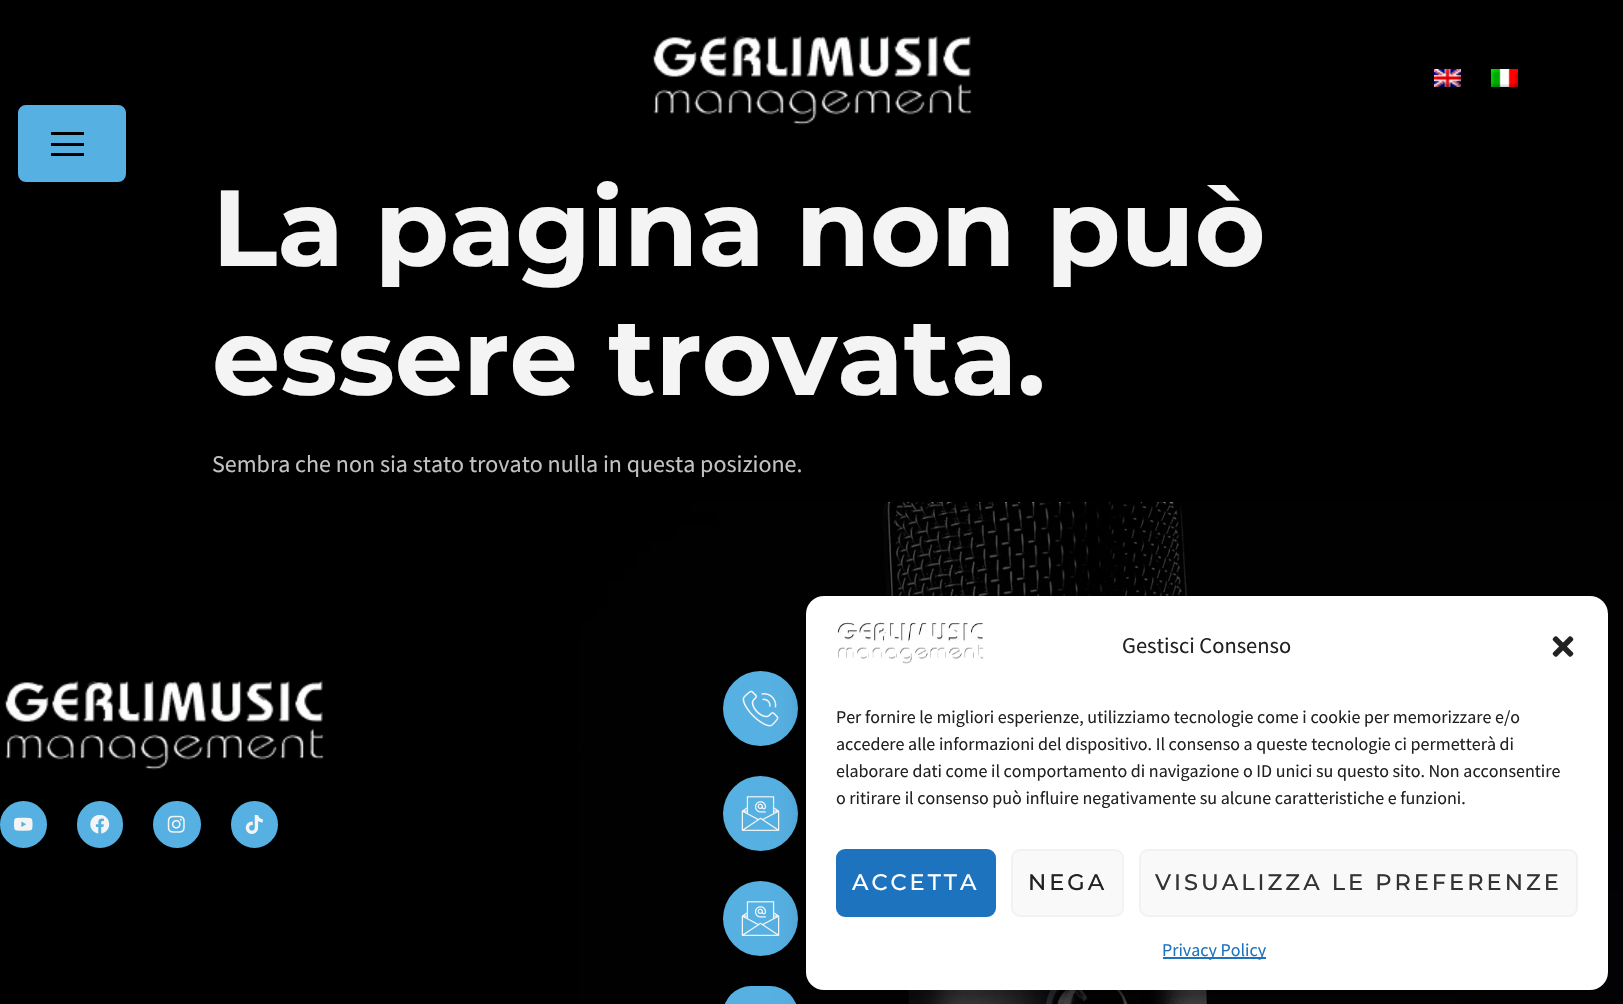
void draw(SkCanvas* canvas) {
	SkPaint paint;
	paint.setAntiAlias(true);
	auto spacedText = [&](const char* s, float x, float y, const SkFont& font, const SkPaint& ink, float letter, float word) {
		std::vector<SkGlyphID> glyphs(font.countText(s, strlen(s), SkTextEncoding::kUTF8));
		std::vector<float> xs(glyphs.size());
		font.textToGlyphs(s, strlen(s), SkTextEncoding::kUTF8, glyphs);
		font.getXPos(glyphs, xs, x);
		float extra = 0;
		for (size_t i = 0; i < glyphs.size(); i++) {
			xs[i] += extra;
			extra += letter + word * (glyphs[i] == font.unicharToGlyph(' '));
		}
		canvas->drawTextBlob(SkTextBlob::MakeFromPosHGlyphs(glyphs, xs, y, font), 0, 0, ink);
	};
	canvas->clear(0xff000000);
	canvas->drawImageRect(SkImages::DeferredFromEncodedData(SkData::MakeFromFileName("img1.png")), SkRect::MakeXYWH(652, 35, 320, 90), SkSamplingOptions());
	canvas->drawImageRect(SkImages::DeferredFromEncodedData(SkData::MakeFromFileName("img2.png")), SkRect::MakeXYWH(1434, 69, 27, 18), SkSamplingOptions());
	canvas->drawImageRect(SkImages::DeferredFromEncodedData(SkData::MakeFromFileName("img3.png")), SkRect::MakeXYWH(1491, 69, 27, 18), SkSamplingOptions());
	paint.setColor(0xff56b0e2);
	canvas->drawRoundRect(SkRect::MakeXYWH(19.5, 106.5, 105, 74), 6.5, 6.5, paint);
	paint.setStroke(true);
	paint.setStrokeWidth(3);
	canvas->drawRoundRect(SkRect::MakeXYWH(19.5, 106.5, 105, 74), 6.5, 6.5, paint);
	paint.setStroke(false);
	paint.setColor(0xff000000);
	canvas->drawRect(SkRect::MakeXYWH(51, 132, 33, 3), paint);
	canvas->drawRect(SkRect::MakeXYWH(51, 143, 33, 3), paint);
	canvas->drawRect(SkRect::MakeXYWH(51, 153, 33, 3), paint);
	SkFont f1(fontMgr->matchFamilyStyle("Montserrat", SkFontStyle::Bold()), 108);
	f1.setSubpixel(true);
	paint.setColor(0xfff4f4f4);
	canvas->drawString("La pagina non può", 212, 266, f1, paint);
	canvas->drawString("essere trovata.", 212, 395, f1, paint);
	SkFont f2(fontMgr->matchFamilyStyle("Source Sans Pro", SkFontStyle::Normal()), 24);
	f2.setSubpixel(true);
	paint.setColor(0xffc2c2c2);
	canvas->drawString("Sembra che non sia stato trovato nulla in questa posizione.", 212, 472, f2, paint);
	canvas->drawImageRect(SkImages::DeferredFromEncodedData(SkData::MakeFromFileName("img4.png")), SkRect::MakeXYWH(578, 502, 1045, 502), SkSamplingOptions());
	canvas->drawImageRect(SkImages::DeferredFromEncodedData(SkData::MakeFromFileName("img1.png")), SkRect::MakeXYWH(4, 680, 320, 90), SkSamplingOptions());
	paint.setColor(0xff56b0e2);
	canvas->drawCircle(23.5, 824.5, 22.5, paint);
	paint.setStroke(true);
	paint.setStrokeWidth(2);
	canvas->drawCircle(23.5, 824.5, 22.5, paint);
	canvas->drawImageRect(SkImages::DeferredFromEncodedData(SkData::MakeFromFileName("img5.png")), SkRect::MakeXYWH(14, 817, 19, 14), SkSamplingOptions());
	paint.setStroke(false);
	canvas->drawRoundRect(SkRect::MakeXYWH(78, 802, 44, 45), 22, 22, paint);
	paint.setStroke(true);
	canvas->drawRoundRect(SkRect::MakeXYWH(78, 802, 44, 45), 22, 22, paint);
	canvas->drawImageRect(SkImages::DeferredFromEncodedData(SkData::MakeFromFileName("img6.png")), SkRect::MakeXYWH(90, 815, 20, 19), SkSamplingOptions());
	paint.setStroke(false);
	canvas->drawRoundRect(SkRect::MakeXYWH(154, 802, 46, 45), 22.5, 22.5, paint);
	paint.setStroke(true);
	canvas->drawRoundRect(SkRect::MakeXYWH(154, 802, 46, 45), 22.5, 22.5, paint);
	canvas->drawImageRect(SkImages::DeferredFromEncodedData(SkData::MakeFromFileName("img7.png")), SkRect::MakeXYWH(167, 815, 18, 18), SkSamplingOptions());
	paint.setStroke(false);
	canvas->drawCircle(254.5, 824.5, 22.5, paint);
	paint.setStroke(true);
	canvas->drawCircle(254.5, 824.5, 22.5, paint);
	canvas->drawImageRect(SkImages::DeferredFromEncodedData(SkData::MakeFromFileName("img8.png")), SkRect::MakeXYWH(245, 815, 18, 19), SkSamplingOptions());
	paint.setStroke(false);
	canvas->drawCircle(760.5, 708.5, 37.5, paint);
	canvas->drawImageRect(SkImages::DeferredFromEncodedData(SkData::MakeFromFileName("img9.png")), SkRect::MakeXYWH(742, 690, 37, 37), SkSamplingOptions());
	canvas->drawCircle(760.5, 813.5, 37.5, paint);
	canvas->drawImageRect(SkImages::DeferredFromEncodedData(SkData::MakeFromFileName("img10.png")), SkRect::MakeXYWH(741, 796, 39, 35), SkSamplingOptions());
	canvas->drawCircle(760.5, 918.5, 37.5, paint);
	canvas->drawImageRect(SkImages::DeferredFromEncodedData(SkData::MakeFromFileName("img10.png")), SkRect::MakeXYWH(741, 901, 39, 35), SkSamplingOptions());
	canvas->drawRoundRect(SkRect::MakeXYWH(723, 986, 75, 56), 37.5, 37.5, paint);
	paint.setColor(0x3b000000);
	paint.setMaskFilter(SkMaskFilter::MakeBlur(kNormal_SkBlurStyle, 4.5));
	canvas->drawRoundRect(SkRect::MakeXYWH(806, 605, 802, 394), 18, 18, paint);
	paint.setMaskFilter(nullptr);
	paint.setColor(0x30000000);
	paint.setMaskFilter(SkMaskFilter::MakeBlur(kNormal_SkBlurStyle, 15));
	canvas->drawRoundRect(SkRect::MakeXYWH(806, 611, 802, 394), 18, 18, paint);
	paint.setMaskFilter(nullptr);
	paint.setColor(0xffffffff);
	canvas->drawRoundRect(SkRect::MakeXYWH(806, 596, 802, 394), 18, 18, paint);
	canvas->drawImageRect(SkImages::DeferredFromEncodedData(SkData::MakeFromFileName("img11.png")), SkRect::MakeXYWH(837, 622, 147, 42), SkSamplingOptions());
	SkFont f3(fontMgr->matchFamilyStyle("Source Sans Pro", SkFontStyle::Normal()), 22.5);
	f3.setSubpixel(true);
	paint.setColor(0xff222222);
	canvas->drawString("Gestisci Consenso", 1122, 653, f3, paint);
	canvas->drawImageRect(SkImages::DeferredFromEncodedData(SkData::MakeFromFileName("img12.png")), SkRect::MakeXYWH(1552, 636, 22, 21), SkSamplingOptions());
	SkFont f4(fontMgr->matchFamilyStyle("Source Sans Pro", SkFontStyle::Normal()), 18);
	f4.setSubpixel(true);
	canvas->drawString("Per fornire le migliori esperienze, utilizziamo tecnologie come i cookie per memorizzare e/o", 836, 723, f4, paint);
	canvas->drawString("accedere alle informazioni del dispositivo. Il consenso a queste tecnologie ci permetterà di", 836, 750, f4, paint);
	canvas->drawString("elaborare dati come il comportamento di navigazione o ID unici su questo sito. Non acconsentire", 836, 777, f4, paint);
	canvas->drawString("o ritirare il consenso può influire negativamente su alcune caratteristiche e funzioni.", 836, 804, f4, paint);
	paint.setColor(0xff1e73be);
	canvas->drawRoundRect(SkRect::MakeXYWH(837, 850, 158, 66), 8, 8, paint);
	paint.setStroke(true);
	canvas->drawRoundRect(SkRect::MakeXYWH(837, 850, 158, 66), 8, 8, paint);
	SkFont f5(fontMgr->matchFamilyStyle("Montserrat", SkFontStyle(500, SkFontStyle::kNormal_Width, SkFontStyle::kUpright_Slant)), 22.5);
	f5.setSubpixel(true);
	paint.setStroke(false);
	paint.setColor(0xffffffff);
	spacedText("ACCETTA", 852, 890, f5, paint, 3, 0);
	paint.setColor(0xfff9f9f9);
	canvas->drawRoundRect(SkRect::MakeXYWH(1012, 850, 111, 66), 8, 8, paint);
	paint.setStroke(true);
	paint.setColor(0xfff2f2f2);
	canvas->drawRoundRect(SkRect::MakeXYWH(1012, 850, 111, 66), 8, 8, paint);
	paint.setStroke(false);
	paint.setColor(0xff222222);
	spacedText("NEGA", 1028, 890, f5, paint, 3, 0);
	paint.setColor(0xfff9f9f9);
	canvas->drawRoundRect(SkRect::MakeXYWH(1140, 850, 437, 66), 8, 8, paint);
	paint.setStroke(true);
	paint.setColor(0xfff2f2f2);
	canvas->drawRoundRect(SkRect::MakeXYWH(1140, 850, 437, 66), 8, 8, paint);
	paint.setStroke(false);
	paint.setColor(0xff333333);
	spacedText("VISUALIZZA LE PREFERENZE", 1155, 890, f5, paint, 3, 0);
	paint.setColor(0xff1e73be);
	canvas->drawRect(SkRect::MakeXYWH(1163, 957, 103, 2), paint);
	canvas->drawString("Privacy Policy", 1162, 956, f4, paint);
}
